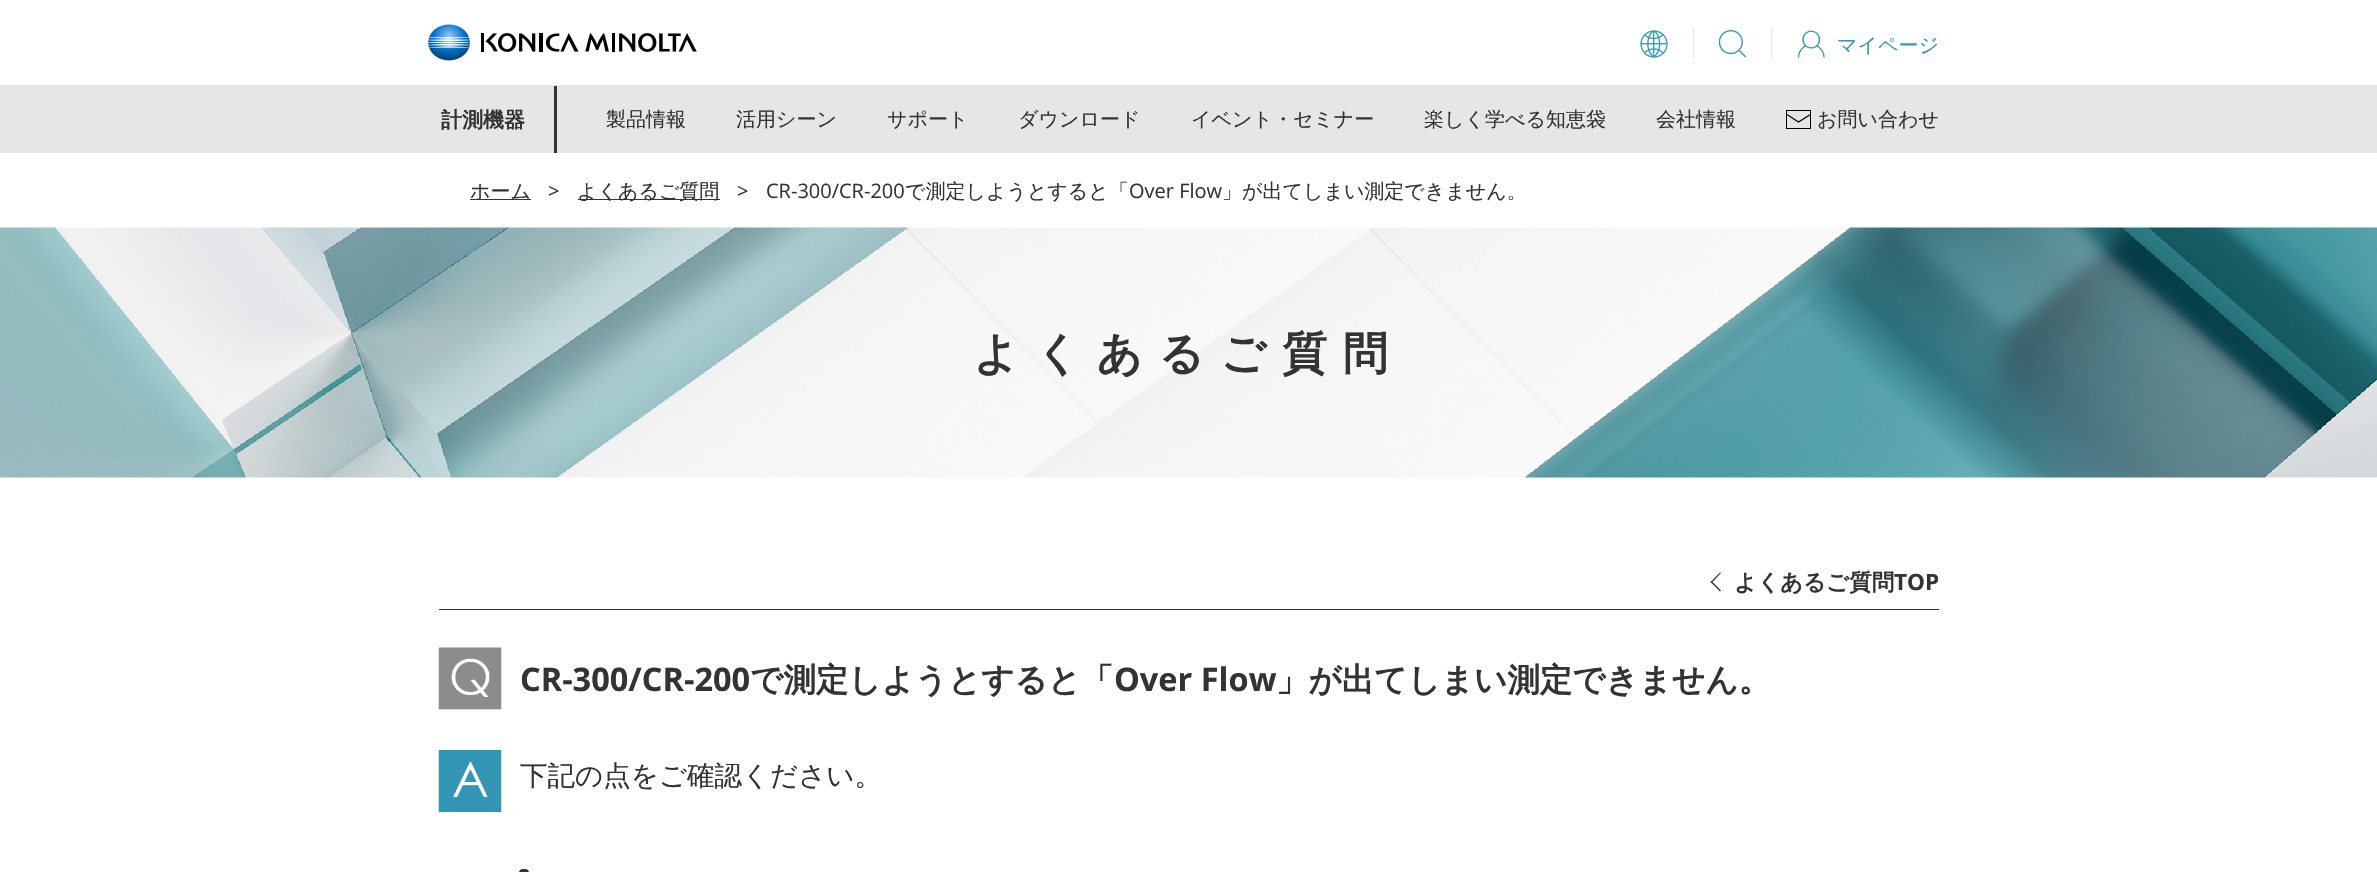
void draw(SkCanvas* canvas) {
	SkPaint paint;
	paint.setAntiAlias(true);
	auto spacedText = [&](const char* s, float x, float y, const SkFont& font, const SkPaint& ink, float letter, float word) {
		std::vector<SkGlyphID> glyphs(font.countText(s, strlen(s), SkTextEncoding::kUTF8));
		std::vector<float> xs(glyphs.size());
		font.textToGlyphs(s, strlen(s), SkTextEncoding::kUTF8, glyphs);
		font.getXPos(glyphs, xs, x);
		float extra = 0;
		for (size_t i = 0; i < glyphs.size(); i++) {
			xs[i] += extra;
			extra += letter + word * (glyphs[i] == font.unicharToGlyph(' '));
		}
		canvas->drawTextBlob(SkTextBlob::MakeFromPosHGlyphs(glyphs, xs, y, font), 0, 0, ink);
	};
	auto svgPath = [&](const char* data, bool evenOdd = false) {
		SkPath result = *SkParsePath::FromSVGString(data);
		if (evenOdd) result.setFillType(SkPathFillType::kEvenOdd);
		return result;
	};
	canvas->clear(0xffffffff);
	canvas->drawImageRect(SkImages::DeferredFromEncodedData(SkData::MakeFromFileName("img1.png")), SkRect::MakeXYWH(428, 24, 269, 37), SkSamplingOptions());
	paint.setColor(0xffe6e6e6);
	canvas->drawRect(SkRect::MakeXYWH(1693, 28, 1, 30), paint);
	canvas->drawImageRect(SkImages::DeferredFromEncodedData(SkData::MakeFromFileName("img2.png")), SkRect::MakeXYWH(1640, 30, 28, 28), SkSamplingOptions());
	canvas->drawRect(SkRect::MakeXYWH(1771, 28, 1, 30), paint);
	canvas->drawImageRect(SkImages::DeferredFromEncodedData(SkData::MakeFromFileName("img3.png")), SkRect::MakeXYWH(1719, 30, 27, 28), SkSamplingOptions());
	canvas->drawImageRect(SkImages::DeferredFromEncodedData(SkData::MakeFromFileName("img4.png")), SkRect::MakeXYWH(1798, 30, 27, 28), SkSamplingOptions());
	SkFont f1(fontMgr->matchFamilyStyle("WenQuanYi Zen Hei", SkFontStyle(500, SkFontStyle::kNormal_Width, SkFontStyle::kUpright_Slant)), 20);
	f1.setSubpixel(true);
	paint.setColor(0xff3296b4);
	canvas->drawString("マイページ", 1837, 52, f1, paint);
	paint.setColor(0xffe6e6e6);
	canvas->drawRect(SkRect::MakeXYWH(0, 85, 2377, 68), paint);
	paint.setColor(0xff333333);
	canvas->drawRect(SkRect::MakeXYWH(554, 86, 3, 67), paint);
	SkFont f2(fontMgr->matchFamilyStyle("WenQuanYi Zen Hei", SkFontStyle::Bold()), 21);
	f2.setSubpixel(true);
	canvas->drawString("計測機器", 441, 127, f2, paint);
	canvas->drawString("製品情報", 606, 126, f1, paint);
	canvas->drawString("活用シーン", 736, 126, f1, paint);
	canvas->drawString("サポート", 887, 126, f1, paint);
	canvas->drawString("ダウンロード", 1018, 126, f1, paint);
	canvas->drawString("イベント・セミナー", 1191, 126, f1, paint);
	canvas->drawString("楽しく学べる知恵袋", 1424, 126, f1, paint);
	canvas->drawString("会社情報", 1656, 126, f1, paint);
	paint.setStroke(true);
	paint.setStrokeWidth(1);
	paint.setColor(0xff000000);
	canvas->drawRect(SkRect::MakeXYWH(1786.5, 110.5, 24, 18), paint);
	paint.setStrokeWidth(1.2);
	canvas->drawPath(svgPath("M1787 114.5L1798.5 122L1810.5 114.5"), paint);
	paint.setStroke(false);
	paint.setColor(0xff333333);
	canvas->drawString("お問い合わせ", 1817, 126, f1, paint);
	canvas->drawRect(SkRect::MakeXYWH(470, 199, 61, 1), paint);
	canvas->drawString("ホーム", 470, 198, f1, paint);
	SkFont f3(fontMgr->matchFamilyStyle("Open Sans", SkFontStyle::Normal()), 20);
	f3.setSubpixel(true);
	canvas->drawString(">", 548, 198, f3, paint);
	canvas->drawRect(SkRect::MakeXYWH(578, 199, 142, 1), paint);
	canvas->drawString("よくあるご質問", 577, 198, f1, paint);
	canvas->drawString(">", 737, 198, f3, paint);
	canvas->drawString("CR-300/CR-200", 766, 198, f3, paint);
	canvas->drawString("で測定しようとすると「", 905, 198, f1, paint);
	canvas->drawString("Over Flow", 1129, 198, f3, paint);
	canvas->drawString("」が出てしまい測定できません。", 1222, 198, f1, paint);
	canvas->drawImageRect(SkImages::DeferredFromEncodedData(SkData::MakeFromFileName("img5.png")), SkRect::MakeXYWH(0, 227, 2377, 251), SkSamplingOptions());
	SkFont f4(fontMgr->matchFamilyStyle("WenQuanYi Zen Hei", SkFontStyle::Bold()), 45);
	f4.setSubpixel(true);
	spacedText("よくあるご質問", 973, 369, f4, paint, 15.75, 0);
	canvas->drawPath(svgPath("M1721 590.5L1720 591.5L1710.5 582L1711.5 581Z"), paint);
	canvas->drawPath(svgPath("M1721 573L1711.5 583L1710.5 582L1720 572.5Z"), paint);
	SkFont f5(fontMgr->matchFamilyStyle("WenQuanYi Zen Hei", SkFontStyle::Bold()), 22.5);
	f5.setSubpixel(true);
	canvas->drawString("よくあるご質問", 1734, 590, f5, paint);
	SkFont f6(fontMgr->matchFamilyStyle("Open Sans", SkFontStyle::Bold()), 22.5);
	f6.setSubpixel(true);
	canvas->drawString("TOP", 1894, 590, f6, paint);
	canvas->drawRect(SkRect::MakeXYWH(439, 609, 1500, 1), paint);
	canvas->drawImageRect(SkImages::DeferredFromEncodedData(SkData::MakeFromFileName("img6.png")), SkRect::MakeXYWH(438, 647, 64, 63), SkSamplingOptions());
	SkFont f7(fontMgr->matchFamilyStyle("Open Sans", SkFontStyle::Bold()), 32.5);
	f7.setSubpixel(true);
	canvas->drawString("CR-300/CR-200", 520, 691, f7, paint);
	SkFont f8(fontMgr->matchFamilyStyle("WenQuanYi Zen Hei", SkFontStyle::Bold()), 32.5);
	f8.setSubpixel(true);
	canvas->drawString("で測定しようとすると「", 750, 691, f8, paint);
	canvas->drawString("Over Flow", 1114, 691, f7, paint);
	canvas->drawString("」が出てしまい測定できません。", 1276, 691, f8, paint);
	canvas->drawImageRect(SkImages::DeferredFromEncodedData(SkData::MakeFromFileName("img7.png")), SkRect::MakeXYWH(438, 750, 64, 62), SkSamplingOptions());
	SkFont f9(fontMgr->matchFamilyStyle("WenQuanYi Zen Hei", SkFontStyle(500, SkFontStyle::kNormal_Width, SkFontStyle::kUpright_Slant)), 27.5);
	f9.setSubpixel(true);
	canvas->drawString("下記の点をご確認ください。", 520, 785, f9, paint);
	canvas->drawRoundRect(SkRect::MakeXYWH(519, 869, 10, 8), 5, 5, paint);
}
